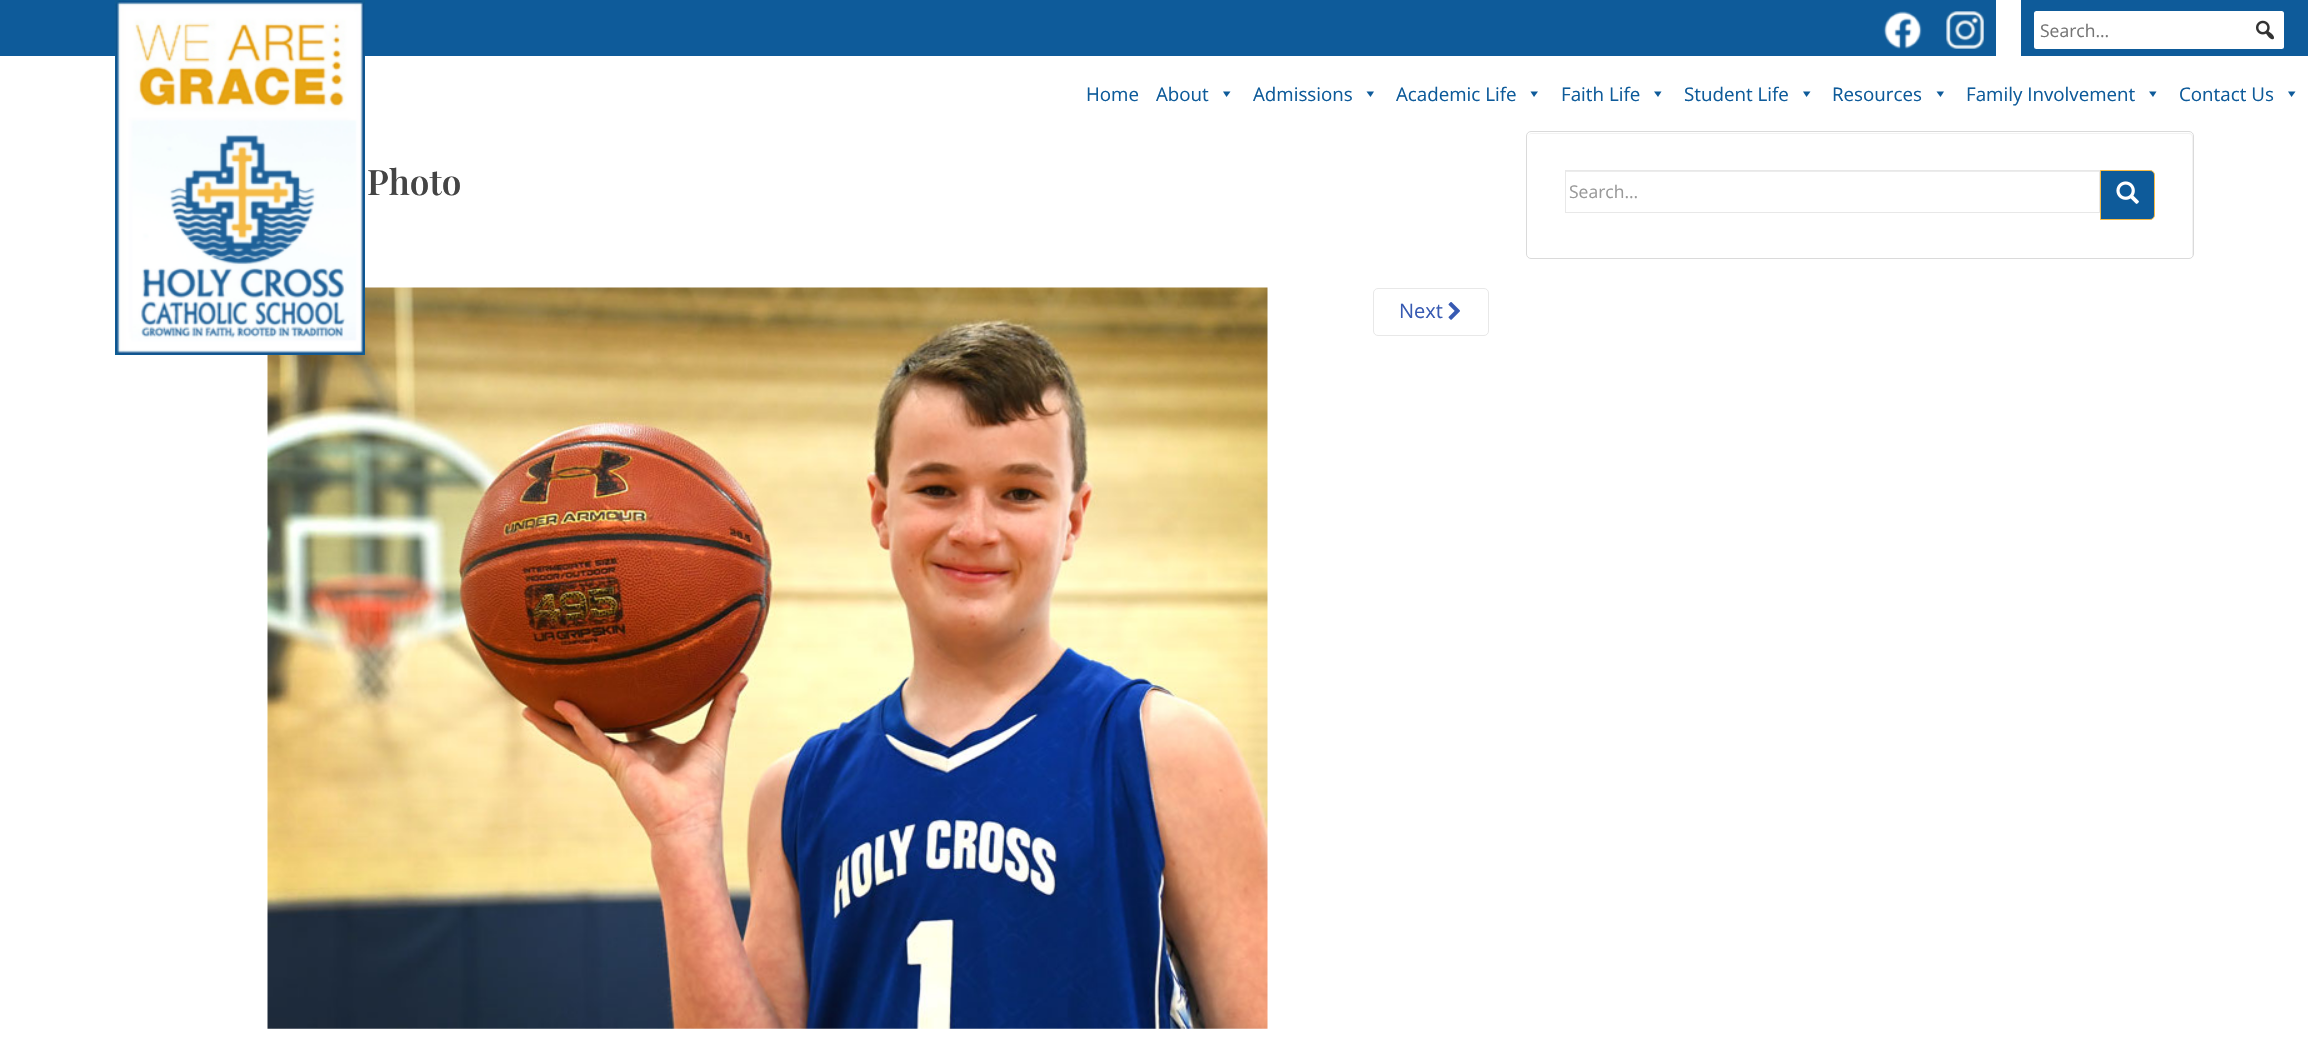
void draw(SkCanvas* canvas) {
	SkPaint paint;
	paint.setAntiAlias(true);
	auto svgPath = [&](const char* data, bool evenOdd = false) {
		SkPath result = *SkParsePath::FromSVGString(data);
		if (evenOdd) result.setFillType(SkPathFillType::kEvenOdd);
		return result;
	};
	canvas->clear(0xffffffff);
	paint.setColor(0xff0e5b9a);
	canvas->drawRect(SkRect::MakeXYWH(0, 0, 2308, 56), paint);
	canvas->drawImageRect(SkImages::DeferredFromEncodedData(SkData::MakeFromFileName("img6.png")), SkRect::MakeXYWH(267, 287, 1001, 742), SkSamplingOptions());
	canvas->drawImageRect(SkImages::DeferredFromEncodedData(SkData::MakeFromFileName("img1.png")), SkRect::MakeXYWH(115, 0, 250, 355), SkSamplingOptions());
	canvas->drawImageRect(SkImages::DeferredFromEncodedData(SkData::MakeFromFileName("img2.png")), SkRect::MakeXYWH(1883, 11, 39, 38), SkSamplingOptions());
	canvas->drawImageRect(SkImages::DeferredFromEncodedData(SkData::MakeFromFileName("img3.png")), SkRect::MakeXYWH(1946, 11, 38, 38), SkSamplingOptions());
	paint.setColor(0xffffffff);
	canvas->drawRect(SkRect::MakeXYWH(1996, 0, 25, 56), paint);
	canvas->drawRoundRect(SkRect::MakeXYWH(2034, 11, 250, 38), 2.5, 2.5, paint);
	SkFont f1(fontMgr->matchFamilyStyle("Open Sans", SkFontStyle::Normal()), 17.5);
	f1.setSubpixel(true);
	paint.setColor(0xff757575);
	canvas->drawString("Search...", 2040, 37, f1, paint);
	canvas->drawImageRect(SkImages::DeferredFromEncodedData(SkData::MakeFromFileName("img4.png")), SkRect::MakeXYWH(2256, 20, 18, 20), SkSamplingOptions());
	SkFont f2(fontMgr->matchFamilyStyle("Open Sans", SkFontStyle::Normal()), 18.75);
	f2.setSubpixel(true);
	paint.setColor(0xff0e5b9a);
	canvas->drawString("Home", 1086, 101, f2, paint);
	canvas->drawString("About", 1156, 101, f2, paint);
	canvas->drawPath(svgPath("M1230.5 91.5L1226.5 97L1223 91.5Z"), paint);
	canvas->drawString("Admissions", 1253, 101, f2, paint);
	canvas->drawPath(svgPath("M1374 91.5L1370.5 97L1366.5 91.5Z"), paint);
	canvas->drawString("Academic Life", 1396, 101, f2, paint);
	canvas->drawPath(svgPath("M1538 91.5L1534 97L1530.5 91.5Z"), paint);
	canvas->drawString("Faith Life", 1561, 101, f2, paint);
	canvas->drawPath(svgPath("M1661.5 91.5L1658 97L1654 91.5Z"), paint);
	canvas->drawString("Student Life", 1684, 101, f2, paint);
	canvas->drawPath(svgPath("M1810.5 91.5L1806.5 97L1803 91.5Z"), paint);
	canvas->drawString("Resources", 1832, 101, f2, paint);
	canvas->drawPath(svgPath("M1944 91.5L1940.5 97L1936.5 91.5Z"), paint);
	canvas->drawString("Family Involvement", 1966, 101, f2, paint);
	canvas->drawPath(svgPath("M2156.5 91.5L2153 97L2149 91.5Z"), paint);
	canvas->drawString("Contact Us", 2179, 101, f2, paint);
	canvas->drawPath(svgPath("M2295.5 91.5L2291.5 97L2288 91.5Z"), paint);
	SkFont f3(fontMgr->matchFamilyStyle("Playfair Display", SkFontStyle(600, SkFontStyle::kNormal_Width, SkFontStyle::kUpright_Slant)), 35);
	f3.setSubpixel(true);
	paint.setColor(0xff444444);
	canvas->drawString("Photo", 367, 195, f3, paint);
	paint.setStroke(true);
	paint.setStrokeWidth(1);
	paint.setColor(0xffe8e8e8);
	canvas->drawRoundRect(SkRect::MakeXYWH(1373.5, 288.5, 115, 47), 4.5, 4.5, paint);
	SkFont f4(fontMgr->matchFamilyStyle("Open Sans", SkFontStyle::Normal()), 20);
	f4.setSubpixel(true);
	paint.setStroke(false);
	paint.setColor(0xff375ab2);
	canvas->drawString("Next", 1399, 318, f4, paint);
	canvas->drawImageRect(SkImages::DeferredFromEncodedData(SkData::MakeFromFileName("img5.png")), SkRect::MakeXYWH(1448, 302, 12, 18), SkSamplingOptions());
	paint.setColor(0xfff2f2f2);
	canvas->drawPath(svgPath("M1531 134H2189C2191 134 2192 135 2192 138V255V257C2192 256 2193 255 2193 254V137C2193 135 2191 133 2189 133H1532C1530 133 1528 135 1528 137V138C1528 135 1529 134 1531 134Z"), paint);
	paint.setStroke(true);
	paint.setColor(0xffdadada);
	canvas->drawRoundRect(SkRect::MakeXYWH(1526.5, 131.5, 667, 127), 4.5, 4.5, paint);
	paint.setStroke(false);
	paint.setColor(0xffececec);
	canvas->drawRect(SkRect::MakeXYWH(1566, 171, 533, 1), paint);
	paint.setStroke(true);
	paint.setColor(0xffe8e8e8);
	canvas->drawRect(SkRect::MakeXYWH(1565.5, 170.5, 534, 42), paint);
	paint.setStroke(false);
	paint.setColor(0xff999999);
	canvas->drawString("Search…", 1569, 198, f1, paint);
	paint.setColor(0xff0e5b9a);
	canvas->drawPath(svgPath("M2100.5 170.5H2150C2152.5 170.5 2154.5 172.5 2154.5 175V215C2154.5 217.5 2152.5 219.5 2150 219.5H2100.5Z"), paint);
	paint.setStroke(true);
	paint.setColor(0xfff5ba45);
	canvas->drawPath(svgPath("M2100.5 170.5H2150C2152.5 170.5 2154.5 172.5 2154.5 175V215C2154.5 217.5 2152.5 219.5 2150 219.5H2100.5Z"), paint);
	canvas->drawImageRect(SkImages::DeferredFromEncodedData(SkData::MakeFromFileName("img7.png")), SkRect::MakeXYWH(2116, 181, 23, 23), SkSamplingOptions());
}
